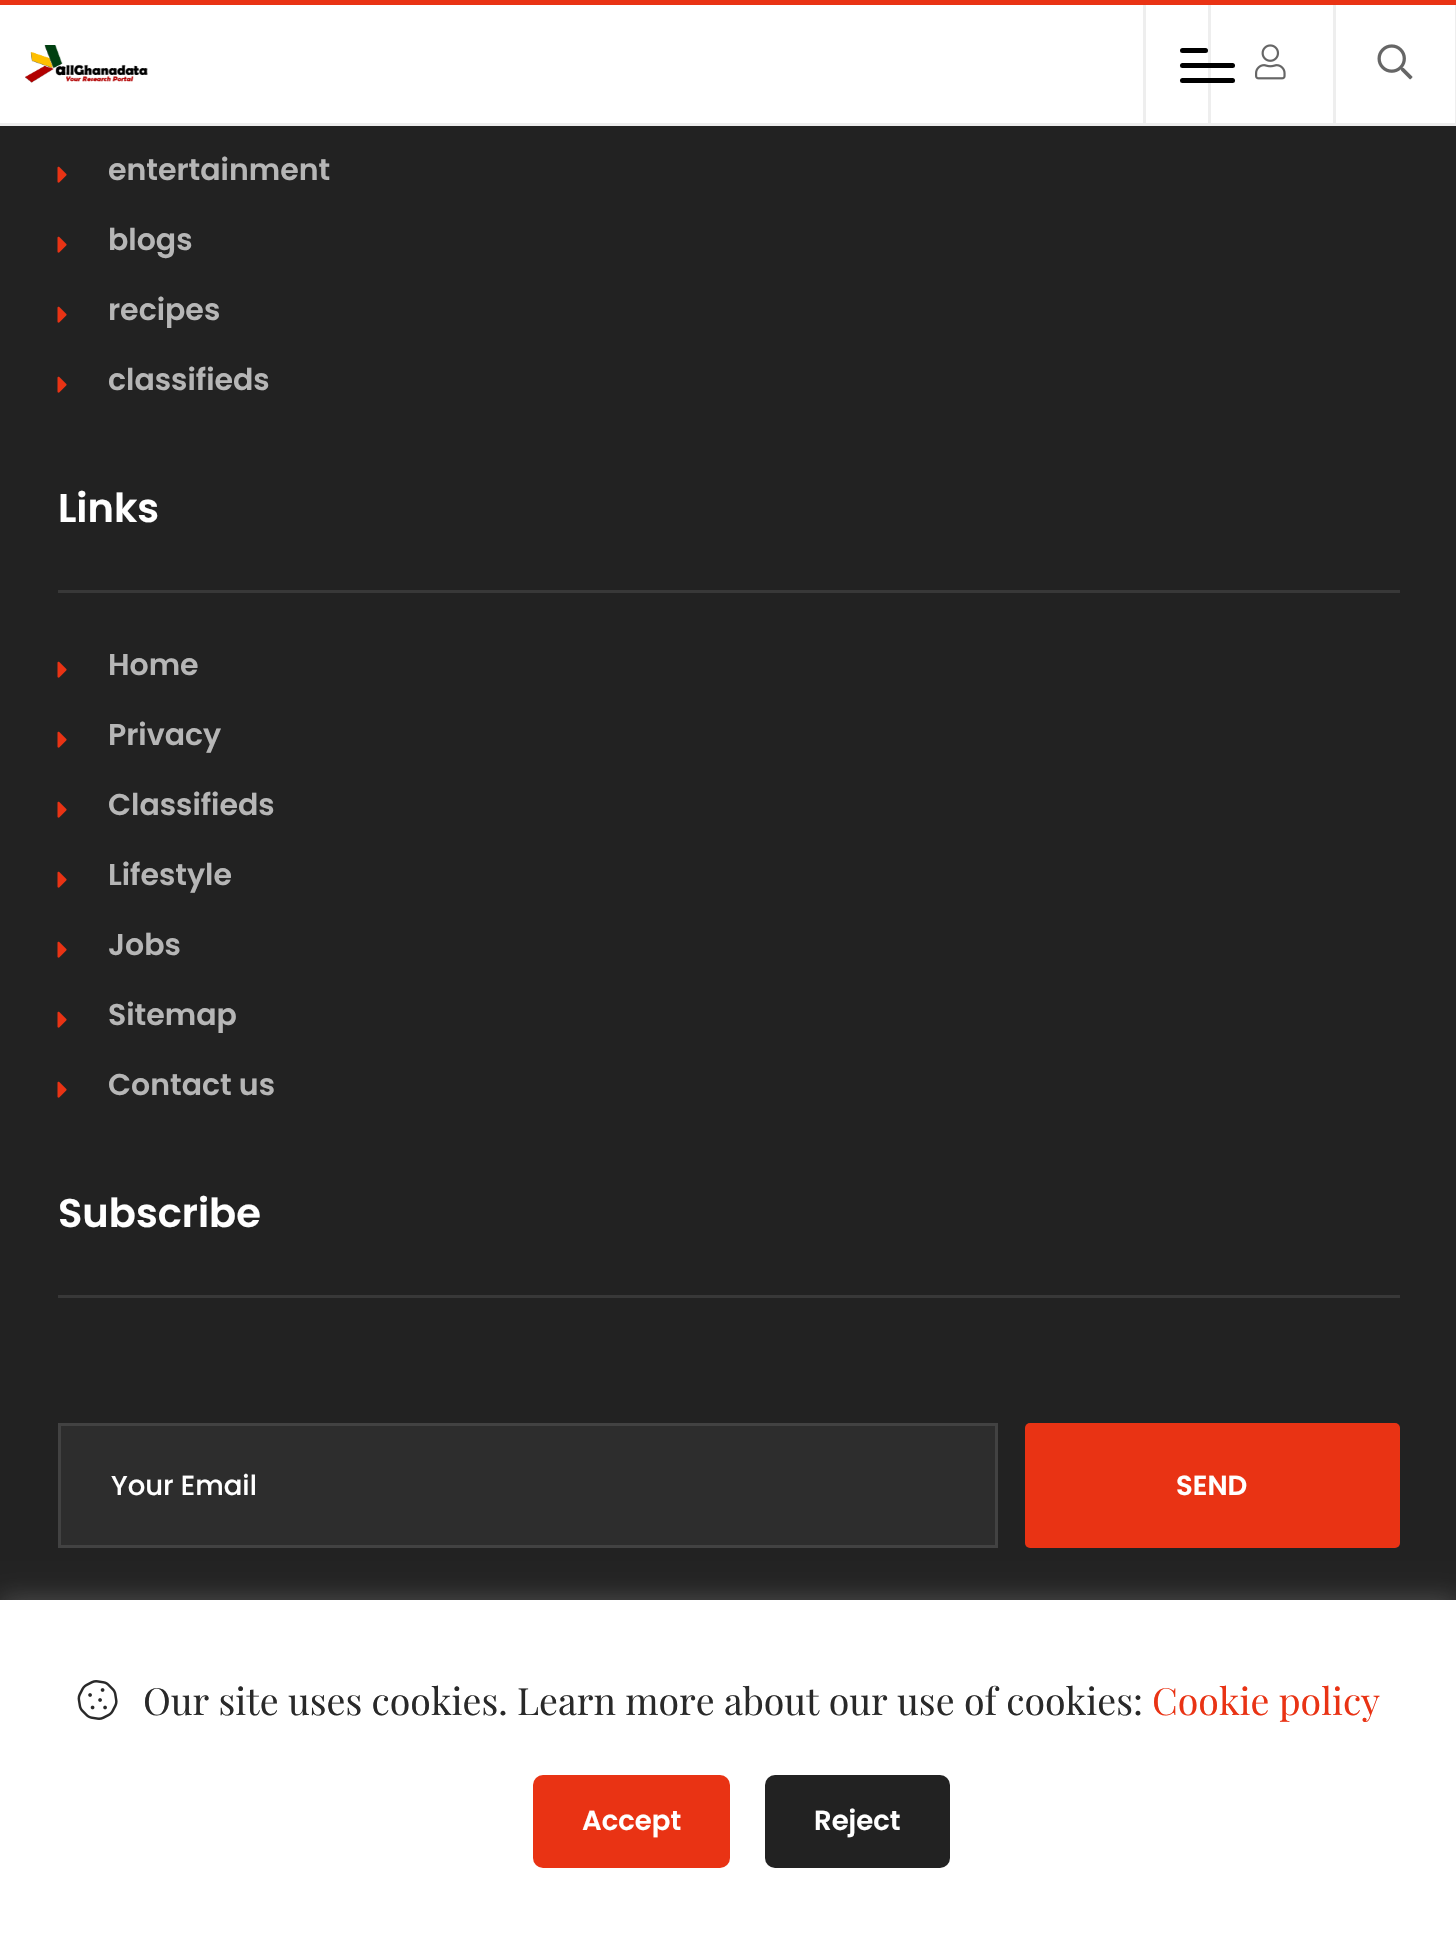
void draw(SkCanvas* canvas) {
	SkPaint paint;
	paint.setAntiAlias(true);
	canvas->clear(0xff222222);
	paint.setColor(0xffffffff);
	canvas->drawRect(SkRect::MakeXYWH(0, 5, 1455, 118), paint);
	paint.setColor(0xffeeeeee);
	canvas->drawRect(SkRect::MakeXYWH(0, 123, 1456, 3), paint);
	canvas->drawImageRect(SkImages::DeferredFromEncodedData(SkData::MakeFromFileName("img1.png")), SkRect::MakeXYWH(25, 45, 123, 38), SkSamplingOptions());
	canvas->drawRect(SkRect::MakeXYWH(1143, 0, 3, 125), paint);
	paint.setColor(0xff000000);
	canvas->drawRoundRect(SkRect::MakeXYWH(1180, 48, 28, 5), 2.5, 2.5, paint);
	paint.setColor(0xffeeeeee);
	canvas->drawRect(SkRect::MakeXYWH(1208, 0, 3, 125), paint);
	paint.setColor(0xff000000);
	canvas->drawRoundRect(SkRect::MakeXYWH(1180, 63, 55, 5), 2.5, 2.5, paint);
	canvas->drawRoundRect(SkRect::MakeXYWH(1180, 78, 55, 5), 2.5, 2.5, paint);
	canvas->drawImageRect(SkImages::DeferredFromEncodedData(SkData::MakeFromFileName("img2.png")), SkRect::MakeXYWH(1255, 44, 31, 36), SkSamplingOptions());
	paint.setColor(0xffeeeeee);
	canvas->drawRect(SkRect::MakeXYWH(1455, 0, 1, 125), paint);
	canvas->drawRect(SkRect::MakeXYWH(1333, 0, 3, 125), paint);
	canvas->drawImageRect(SkImages::DeferredFromEncodedData(SkData::MakeFromFileName("img3.png")), SkRect::MakeXYWH(1377, 44, 36, 36), SkSamplingOptions());
	paint.setColor(0xffe93314);
	canvas->drawRect(SkRect::MakeXYWH(0, 0, 1456, 5), paint);
	canvas->drawImageRect(SkImages::DeferredFromEncodedData(SkData::MakeFromFileName("img4.png")), SkRect::MakeXYWH(57, 166, 10, 17), SkSamplingOptions());
	SkFont f1(fontMgr->matchFamilyStyle("Poppins", SkFontStyle(600, SkFontStyle::kNormal_Width, SkFontStyle::kUpright_Slant)), 30);
	f1.setSubpixel(true);
	paint.setColor(0xffb6b6b6);
	canvas->drawString("entertainment", 108, 180, f1, paint);
	canvas->drawImageRect(SkImages::DeferredFromEncodedData(SkData::MakeFromFileName("img4.png")), SkRect::MakeXYWH(57, 236, 10, 17), SkSamplingOptions());
	canvas->drawString("blogs", 108, 250, f1, paint);
	canvas->drawImageRect(SkImages::DeferredFromEncodedData(SkData::MakeFromFileName("img4.png")), SkRect::MakeXYWH(57, 306, 10, 17), SkSamplingOptions());
	canvas->drawString("recipes", 108, 320, f1, paint);
	canvas->drawImageRect(SkImages::DeferredFromEncodedData(SkData::MakeFromFileName("img4.png")), SkRect::MakeXYWH(57, 376, 10, 17), SkSamplingOptions());
	canvas->drawString("classifieds", 108, 390, f1, paint);
	paint.setColor(0xff383838);
	canvas->drawRect(SkRect::MakeXYWH(58, 590, 1342, 3), paint);
	SkFont f2(fontMgr->matchFamilyStyle("Poppins", SkFontStyle(600, SkFontStyle::kNormal_Width, SkFontStyle::kUpright_Slant)), 40);
	f2.setSubpixel(true);
	paint.setColor(0xffffffff);
	canvas->drawString("Links", 58, 522, f2, paint);
	canvas->drawImageRect(SkImages::DeferredFromEncodedData(SkData::MakeFromFileName("img4.png")), SkRect::MakeXYWH(57, 661, 10, 17), SkSamplingOptions());
	paint.setColor(0xffb6b6b6);
	canvas->drawString("Home", 108, 675, f1, paint);
	canvas->drawImageRect(SkImages::DeferredFromEncodedData(SkData::MakeFromFileName("img4.png")), SkRect::MakeXYWH(57, 731, 10, 17), SkSamplingOptions());
	canvas->drawString("Privacy", 108, 745, f1, paint);
	canvas->drawImageRect(SkImages::DeferredFromEncodedData(SkData::MakeFromFileName("img4.png")), SkRect::MakeXYWH(57, 801, 10, 17), SkSamplingOptions());
	canvas->drawString("Classifieds", 108, 815, f1, paint);
	canvas->drawImageRect(SkImages::DeferredFromEncodedData(SkData::MakeFromFileName("img4.png")), SkRect::MakeXYWH(57, 871, 10, 17), SkSamplingOptions());
	canvas->drawString("Lifestyle", 108, 885, f1, paint);
	canvas->drawImageRect(SkImages::DeferredFromEncodedData(SkData::MakeFromFileName("img4.png")), SkRect::MakeXYWH(57, 941, 10, 17), SkSamplingOptions());
	canvas->drawString("Jobs", 108, 955, f1, paint);
	canvas->drawImageRect(SkImages::DeferredFromEncodedData(SkData::MakeFromFileName("img4.png")), SkRect::MakeXYWH(57, 1011, 10, 17), SkSamplingOptions());
	canvas->drawString("Sitemap", 108, 1025, f1, paint);
	canvas->drawImageRect(SkImages::DeferredFromEncodedData(SkData::MakeFromFileName("img4.png")), SkRect::MakeXYWH(57, 1081, 10, 17), SkSamplingOptions());
	canvas->drawString("Contact us", 108, 1095, f1, paint);
	paint.setColor(0xff383838);
	canvas->drawRect(SkRect::MakeXYWH(58, 1295, 1342, 3), paint);
	paint.setColor(0xffffffff);
	canvas->drawString("Subscribe", 58, 1227, f2, paint);
	paint.setColor(0xff2d2d2d);
	canvas->drawRect(SkRect::MakeXYWH(59.5, 1424.5, 937, 122), paint);
	paint.setStroke(true);
	paint.setStrokeWidth(3);
	paint.setColor(0xff424242);
	canvas->drawRect(SkRect::MakeXYWH(59.5, 1424.5, 937, 122), paint);
	SkFont f3(fontMgr->matchFamilyStyle("Poppins", SkFontStyle(500, SkFontStyle::kNormal_Width, SkFontStyle::kUpright_Slant)), 27.5);
	f3.setSubpixel(true);
	paint.setStroke(false);
	paint.setColor(0xffffffff);
	canvas->drawString("Your Email", 111, 1495, f3, paint);
	paint.setColor(0xffe93314);
	canvas->drawRoundRect(SkRect::MakeXYWH(1025, 1423, 375, 125), 5, 5, paint);
	SkFont f4(fontMgr->matchFamilyStyle("Poppins", SkFontStyle(600, SkFontStyle::kNormal_Width, SkFontStyle::kUpright_Slant)), 27.5);
	f4.setSubpixel(true);
	paint.setColor(0xffffffff);
	canvas->drawString("SEND", 1176, 1495, f4, paint);
	paint.setColor(0x4dacabab);
	paint.setMaskFilter(SkMaskFilter::MakeBlur(kNormal_SkBlurStyle, 12.5));
	canvas->drawRect(SkRect::MakeXYWH(0, 1598, 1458, 342), paint);
	paint.setMaskFilter(nullptr);
	paint.setColor(0xffffffff);
	canvas->drawRect(SkRect::MakeXYWH(0, 1600, 1456, 342), paint);
	canvas->drawImageRect(SkImages::DeferredFromEncodedData(SkData::MakeFromFileName("img5.png")), SkRect::MakeXYWH(77, 1680, 41, 40), SkSamplingOptions());
	SkFont f5(fontMgr->matchFamilyStyle("Playfair Display", SkFontStyle::Normal()), 37.5);
	f5.setSubpixel(true);
	paint.setColor(0xff292929);
	canvas->drawString("Our site uses cookies. Learn more about our use of cookies:", 143, 1715, f5, paint);
	paint.setColor(0xffe93314);
	canvas->drawString("Cookie policy", 1152, 1715, f5, paint);
	canvas->drawRoundRect(SkRect::MakeXYWH(533, 1775, 197, 93), 10, 10, paint);
	paint.setColor(0xffffffff);
	canvas->drawString("Accept", 582, 1830, f4, paint);
	paint.setColor(0xff222222);
	canvas->drawRoundRect(SkRect::MakeXYWH(765, 1775, 185, 93), 10, 10, paint);
	paint.setColor(0xffffffff);
	canvas->drawString("Reject", 814, 1830, f4, paint);
}
